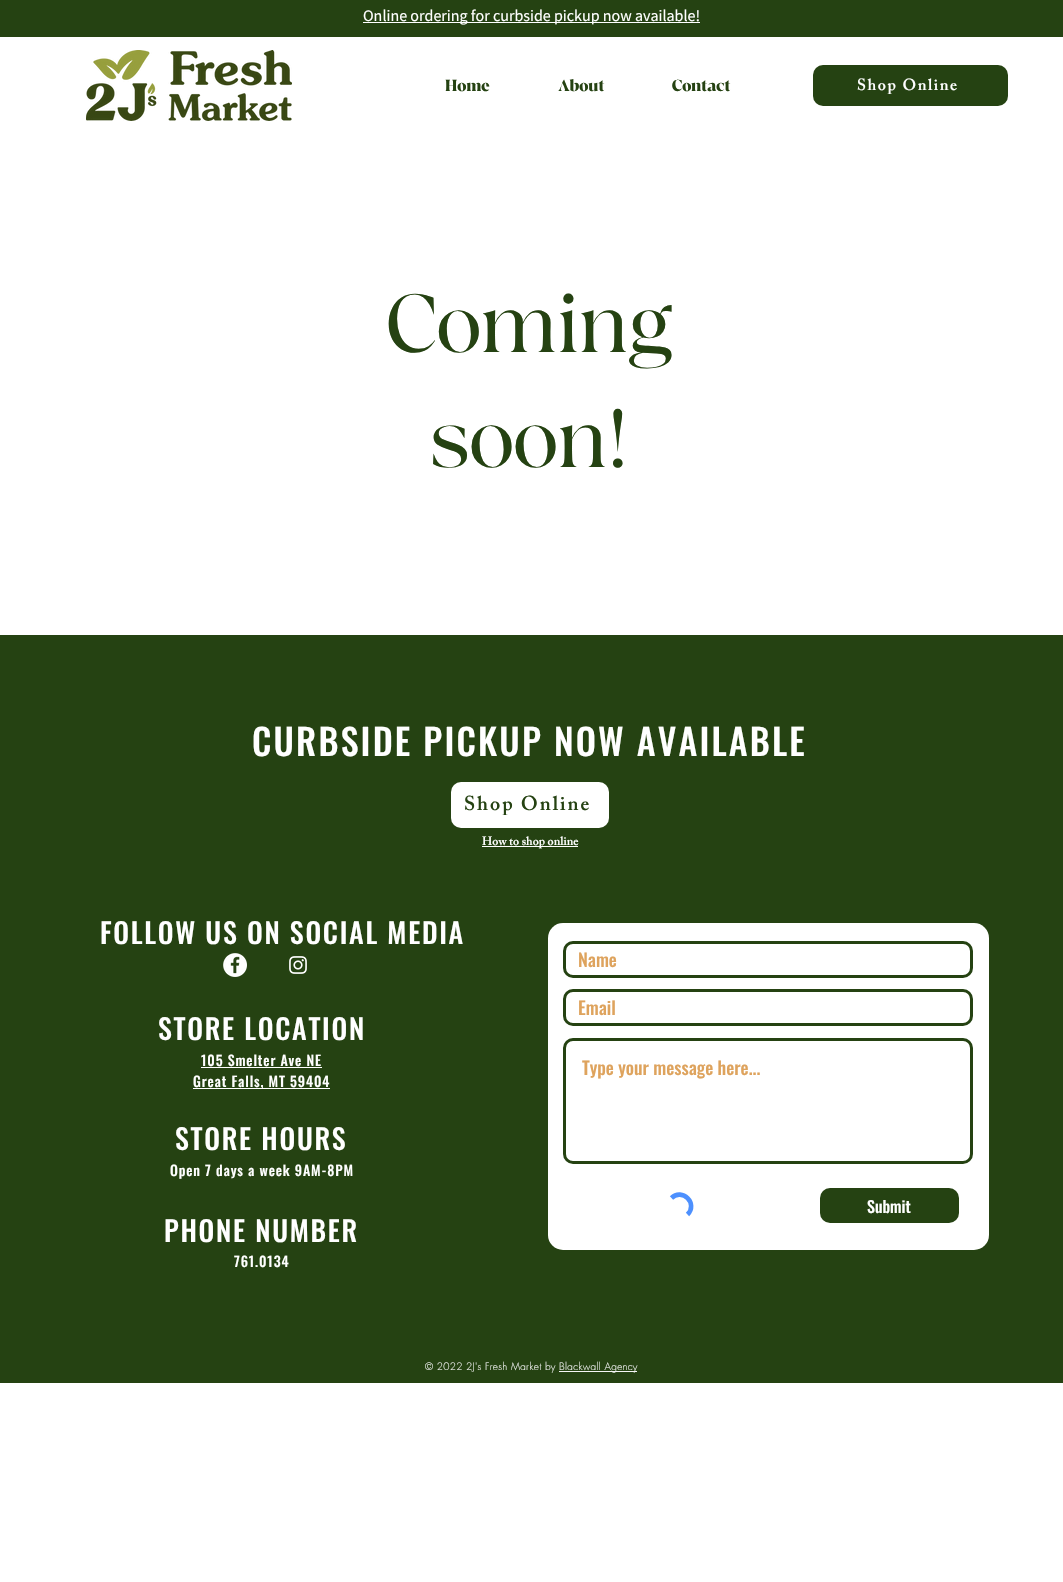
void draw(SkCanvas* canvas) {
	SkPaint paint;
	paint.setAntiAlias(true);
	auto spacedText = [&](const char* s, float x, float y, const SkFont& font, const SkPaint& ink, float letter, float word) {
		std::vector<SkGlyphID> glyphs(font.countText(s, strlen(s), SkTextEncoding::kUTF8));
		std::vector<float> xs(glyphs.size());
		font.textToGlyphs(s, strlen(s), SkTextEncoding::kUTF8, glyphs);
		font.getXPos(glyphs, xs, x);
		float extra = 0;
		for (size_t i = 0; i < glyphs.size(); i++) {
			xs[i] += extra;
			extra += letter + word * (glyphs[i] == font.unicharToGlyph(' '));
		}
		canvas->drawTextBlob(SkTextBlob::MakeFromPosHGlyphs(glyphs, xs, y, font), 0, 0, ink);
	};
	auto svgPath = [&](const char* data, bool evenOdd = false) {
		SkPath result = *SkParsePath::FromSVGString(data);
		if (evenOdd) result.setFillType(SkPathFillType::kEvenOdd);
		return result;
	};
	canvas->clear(0xffffffff);
	paint.setColor(0xff254212);
	canvas->drawRect(SkRect::MakeXYWH(0, 0, 1063, 37), paint);
	paint.setColor(0xffffffff);
	canvas->drawRect(SkRect::MakeXYWH(363, 22, 337, 1), paint);
	SkFont f1(fontMgr->matchFamilyStyle("Source Sans Pro", SkFontStyle::Normal()), 16);
	f1.setSubpixel(true);
	canvas->drawString("Online ordering for curbside pickup now available!", 363, 21, f1, paint);
	canvas->drawImageRect(SkImages::DeferredFromEncodedData(SkData::MakeFromFileName("img1.png")), SkRect::MakeXYWH(86, 50, 206, 71), SkSamplingOptions());
	SkFont f2(fontMgr->matchFamilyStyle("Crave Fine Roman", SkFontStyle::Bold()), 16);
	f2.setSubpixel(true);
	paint.setColor(0xff254212);
	canvas->drawString("Home", 445, 91, f2, paint);
	canvas->drawString("About", 558, 91, f2, paint);
	canvas->drawString("Contact", 672, 91, f2, paint);
	canvas->drawRoundRect(SkRect::MakeXYWH(813, 65, 195, 41), 10, 10, paint);
	canvas->save();
	canvas->clipRect(SkRect::MakeXYWH(857, 78, 102, 16));
	SkFont f3(fontMgr->matchFamilyStyle("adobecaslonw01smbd", SkFontStyle(600, SkFontStyle::kNormal_Width, SkFontStyle::kUpright_Slant)), 16);
	f3.setSubpixel(true);
	paint.setColor(0xffffffff);
	spacedText("Shop Online", 857, 90, f3, paint, 1.6, 0);
	canvas->restore();
	SkFont f4(fontMgr->matchFamilyStyle("Crave Fine Roman", SkFontStyle::Normal()), 82);
	f4.setSubpixel(true);
	paint.setColor(0xff254212);
	canvas->drawString("Coming", 386, 352, f4, paint);
	canvas->drawString("soon!", 430, 467, f4, paint);
	canvas->drawRect(SkRect::MakeXYWH(0, 635, 1063, 748), paint);
	SkFont f5(fontMgr->matchFamilyStyle("Oswald", SkFontStyle(500, SkFontStyle::kNormal_Width, SkFontStyle::kUpright_Slant)), 36);
	f5.setSubpixel(true);
	paint.setColor(0xffffffff);
	spacedText("CURBSIDE PICKUP NOW AVAILABLE", 252, 756, f5, paint, 2.15, 0);
	canvas->drawRoundRect(SkRect::MakeXYWH(451, 782, 158, 46), 10, 10, paint);
	canvas->save();
	canvas->clipRect(SkRect::MakeXYWH(464, 795, 127, 20));
	SkFont f6(fontMgr->matchFamilyStyle("adobecaslonw01smbd", SkFontStyle(600, SkFontStyle::kNormal_Width, SkFontStyle::kUpright_Slant)), 20);
	f6.setSubpixel(true);
	paint.setColor(0xff254212);
	spacedText("Shop Online", 464, 810, f6, paint, 2, 0);
	canvas->restore();
	paint.setColor(0xffffffff);
	canvas->drawRect(SkRect::MakeXYWH(482, 846, 96, 1), paint);
	SkFont f7(fontMgr->matchFamilyStyle("adobecaslonw01smbd", SkFontStyle(600, SkFontStyle::kNormal_Width, SkFontStyle::kUpright_Slant)), 12);
	f7.setSubpixel(true);
	canvas->drawString("How to shop online", 482, 845, f7, paint);
	SkFont f8(fontMgr->matchFamilyStyle("Oswald", SkFontStyle(500, SkFontStyle::kNormal_Width, SkFontStyle::kUpright_Slant)), 28);
	f8.setSubpixel(true);
	spacedText("FOLLOW US ON SOCIAL MEDIA", 100, 944, f8, paint, 1.7, 0);
	canvas->drawImageRect(SkImages::DeferredFromEncodedData(SkData::MakeFromFileName("img2.png")), SkRect::MakeXYWH(223, 953, 24, 24), SkSamplingOptions());
	canvas->drawImageRect(SkImages::DeferredFromEncodedData(SkData::MakeFromFileName("img3.png")), SkRect::MakeXYWH(289, 956, 18, 18), SkSamplingOptions());
	canvas->drawRoundRect(SkRect::MakeXYWH(548, 923, 441, 327), 15, 15, paint);
	paint.setStroke(true);
	paint.setStrokeWidth(3);
	paint.setColor(0xff254212);
	canvas->drawRoundRect(SkRect::MakeXYWH(564.5, 942.5, 407, 34), 8.5, 8.5, paint);
	SkFont f9(fontMgr->matchFamilyStyle("Oswald", SkFontStyle(500, SkFontStyle::kNormal_Width, SkFontStyle::kUpright_Slant)), 18);
	f9.setSubpixel(true);
	paint.setStroke(false);
	paint.setColor(0xffdea35d);
	canvas->drawString("Name", 578, 967, f9, paint);
	paint.setStroke(true);
	paint.setColor(0xff254212);
	canvas->drawRoundRect(SkRect::MakeXYWH(564.5, 990.5, 407, 34), 8.5, 8.5, paint);
	paint.setStroke(false);
	paint.setColor(0xffdea35d);
	canvas->drawString("Email", 578, 1015, f9, paint);
	paint.setStroke(true);
	paint.setColor(0xff254212);
	canvas->drawRoundRect(SkRect::MakeXYWH(564.5, 1039.5, 407, 123), 8.5, 8.5, paint);
	paint.setStroke(false);
	paint.setColor(0xffdea35d);
	canvas->drawString("Type your message here...", 582, 1075, f9, paint);
	paint.setStroke(true);
	paint.setStrokeWidth(4.6);
	paint.setColor(0xff4d90fe);
	canvas->drawPath(svgPath("M671.5 1198C682 1187.5 698.5 1203.5 687.5 1214.5"), paint);
	paint.setStroke(false);
	paint.setColor(0xff254212);
	canvas->drawRoundRect(SkRect::MakeXYWH(820, 1188, 139, 35), 10, 10, paint);
	SkFont f10(fontMgr->matchFamilyStyle("Oswald", SkFontStyle(500, SkFontStyle::kNormal_Width, SkFontStyle::kUpright_Slant)), 16);
	f10.setSubpixel(true);
	paint.setColor(0xffffffff);
	canvas->drawString("Submit", 867, 1213, f10, paint);
	spacedText("STORE LOCATION", 158, 1040, f8, paint, 1.7, 0);
	SkFont f11(fontMgr->matchFamilyStyle("Oswald", SkFontStyle(500, SkFontStyle::kNormal_Width, SkFontStyle::kUpright_Slant)), 14);
	f11.setSubpixel(true);
	spacedText("105 Smelter Ave NE", 201, 1066, f11, paint, 0.85, 0);
	canvas->drawRect(SkRect::MakeXYWH(201, 1067, 121, 1), paint);
	canvas->drawRect(SkRect::MakeXYWH(193, 1088, 137, 1), paint);
	spacedText("Great Falls, MT 59404", 193, 1087, f11, paint, 0.85, 0);
	spacedText("STORE HOURS", 175, 1150, f8, paint, 1.7, 0);
	spacedText("Open 7 days a week 9AM-8PM", 170, 1176, f11, paint, 0.85, 0);
	spacedText("PHONE NUMBER", 164, 1242, f8, paint, 1.7, 0);
	spacedText("761.0134", 234, 1267, f11, paint, 0.85, 0);
	SkFont f12(fontMgr->matchFamilyStyle("futura", SkFontStyle(300, SkFontStyle::kNormal_Width, SkFontStyle::kUpright_Slant)), 10);
	f12.setSubpixel(true);
	paint.setColor(0xfff5f5f5);
	spacedText("© 2022 2J's Fresh Market by", 425, 1370, f12, paint, 0.3, 0);
	canvas->drawRect(SkRect::MakeXYWH(559, 1371, 78, 1), paint);
	spacedText("Blackwall Agency", 559, 1370, f12, paint, 0.3, 0);
}
